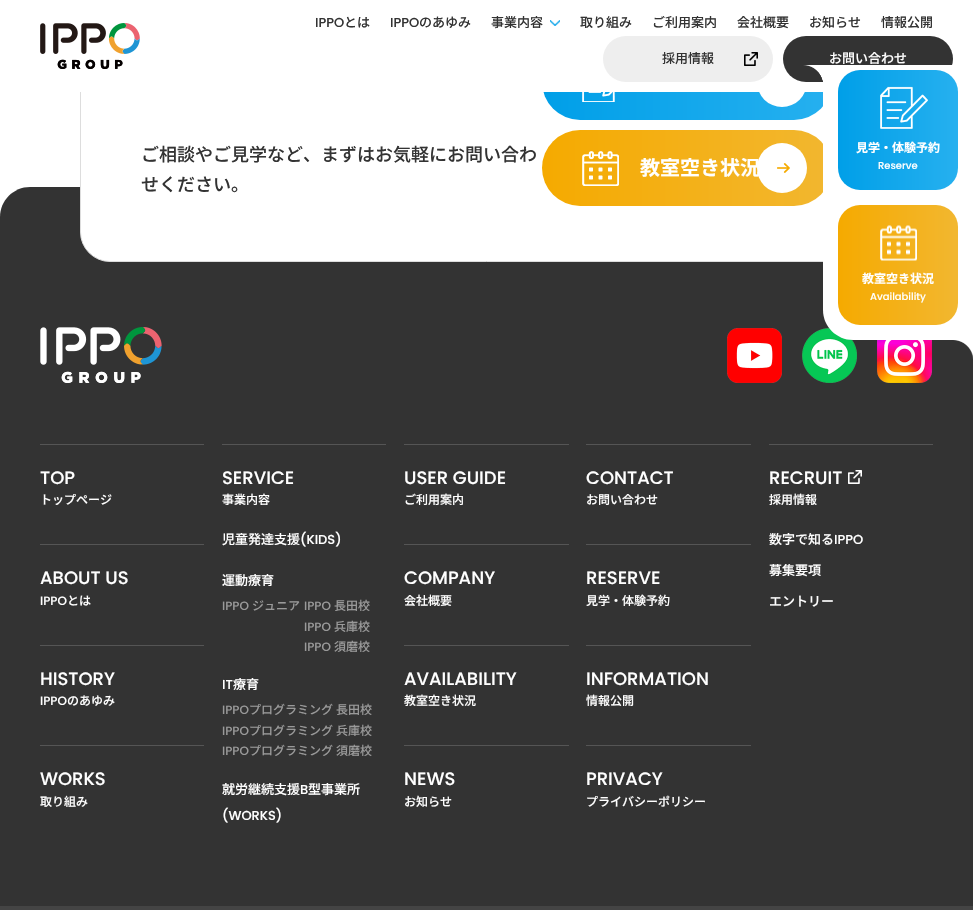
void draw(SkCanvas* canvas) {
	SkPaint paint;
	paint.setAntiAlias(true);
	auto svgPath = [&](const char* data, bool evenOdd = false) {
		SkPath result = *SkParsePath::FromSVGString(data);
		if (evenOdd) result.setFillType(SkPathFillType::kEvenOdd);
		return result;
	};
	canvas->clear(0xffffffff);
	paint.setColor(0xff333333);
	canvas->drawPath(svgPath("M30 187H943C959.5 187 973 200.5 973 217V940H0V217C0 200.5 13.5 187 30 187Z"), paint);
	paint.setColor(0xffffffff);
	canvas->drawRoundRect(SkRect::MakeXYWH(80.5, -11.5, 812, 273), 29.5, 29.5, paint);
	paint.setStroke(true);
	paint.setStrokeWidth(1);
	paint.setColor(0xffdddddd);
	canvas->drawRoundRect(SkRect::MakeXYWH(80.5, -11.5, 812, 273), 29.5, 29.5, paint);
	paint.setStroke(false);
	{
		const SkColor colors[] = {0xff009fe8, 0xff26b0ef};
		const float stops[] = {0, 1};
		const SkPoint ends[] = {{542, 82}, {832, 82}};
		paint.setShader(SkGradientShader::MakeLinear(ends, colors, stops, 2, SkTileMode::kClamp));
		paint.setAlpha(255);
	}
	canvas->drawRoundRect(SkRect::MakeXYWH(542, 44, 290, 76), 38, 38, paint);
	paint.setShader(nullptr);
	paint.setColor(0xffffffff);
	canvas->drawCircle(782, 82, 25, paint);
	canvas->drawRect(SkRect::MakeXYWH(80, 0, 813, 92), paint);
	canvas->drawImageRect(SkImages::DeferredFromEncodedData(SkData::MakeFromFileName("img1.png")), SkRect::MakeXYWH(40, 23, 100, 46), SkSamplingOptions());
	SkFont f1(fontMgr->matchFamilyStyle("Poppins", SkFontStyle(500, SkFontStyle::kNormal_Width, SkFontStyle::kUpright_Slant)), 13);
	f1.setSubpixel(true);
	paint.setColor(0xff333333);
	canvas->drawString("IPPO", 315, 27, f1, paint);
	SkFont f2(fontMgr->matchFamilyStyle("Noto Sans JP", SkFontStyle(500, SkFontStyle::kNormal_Width, SkFontStyle::kUpright_Slant)), 13);
	f2.setSubpixel(true);
	canvas->drawString("とは", 344, 27, f2, paint);
	canvas->drawString("IPPO", 390, 27, f1, paint);
	canvas->drawString("のあゆみ", 419, 27, f2, paint);
	canvas->drawString("事業内容", 491, 27, f2, paint);
	canvas->drawImageRect(SkImages::DeferredFromEncodedData(SkData::MakeFromFileName("img2.png")), SkRect::MakeXYWH(550, 20, 10, 6), SkSamplingOptions());
	canvas->drawString("取り組み", 580, 27, f2, paint);
	canvas->drawString("ご利用案内", 652, 27, f2, paint);
	canvas->drawString("会社概要", 737, 27, f2, paint);
	canvas->drawString("お知らせ", 809, 27, f2, paint);
	canvas->drawString("情報公開", 881, 27, f2, paint);
	paint.setColor(0xffeeeeee);
	canvas->drawRoundRect(SkRect::MakeXYWH(603, 36, 170, 46), 23, 23, paint);
	canvas->drawImageRect(SkImages::DeferredFromEncodedData(SkData::MakeFromFileName("img3.png")), SkRect::MakeXYWH(744, 52, 14, 14), SkSamplingOptions());
	paint.setColor(0xff333333);
	canvas->drawString("採用情報", 662, 63, f2, paint);
	canvas->drawRoundRect(SkRect::MakeXYWH(783, 36, 170, 46), 23, 23, paint);
	paint.setColor(0xffffffff);
	canvas->drawString("お問い合わせ", 829, 63, f2, paint);
	{
		const SkColor colors[] = {0xfff5aa00, 0xfff2b730};
		const float stops[] = {0, 1};
		const SkPoint ends[] = {{542, 168}, {832, 168}};
		paint.setShader(SkGradientShader::MakeLinear(ends, colors, stops, 2, SkTileMode::kClamp));
		paint.setAlpha(255);
	}
	canvas->drawRoundRect(SkRect::MakeXYWH(542, 130, 290, 76), 38, 38, paint);
	canvas->drawImageRect(SkImages::DeferredFromEncodedData(SkData::MakeFromFileName("img13.png")), SkRect::MakeXYWH(802, 328, 55, 55), SkSamplingOptions());
	paint.setShader(nullptr);
	paint.setColor(0xffffffff);
	canvas->drawPath(svgPath("M823 65H973V340H853C836.5 340 823 326.5 823 310Z"), paint);
	canvas->drawImageRect(SkImages::DeferredFromEncodedData(SkData::MakeFromFileName("img4.png")), SkRect::MakeXYWH(803, 65, 20, 16), SkSamplingOptions());
	{
		const SkColor colors[] = {0xff009fe8, 0xff26b0ef};
		const float stops[] = {0, 1};
		const SkPoint ends[] = {{838, 130}, {958, 130}};
		paint.setShader(SkGradientShader::MakeLinear(ends, colors, stops, 2, SkTileMode::kClamp));
		paint.setAlpha(255);
	}
	canvas->drawRoundRect(SkRect::MakeXYWH(838, 70, 120, 120), 22, 22, paint);
	canvas->drawImageRect(SkImages::DeferredFromEncodedData(SkData::MakeFromFileName("img5.png")), SkRect::MakeXYWH(880, 86, 48, 43), SkSamplingOptions());
	SkFont f3(fontMgr->matchFamilyStyle("Noto Sans JP", SkFontStyle::Bold()), 12);
	f3.setSubpixel(true);
	paint.setShader(nullptr);
	paint.setColor(0xffffffff);
	canvas->drawString("見学・体験予約", 856, 152, f3, paint);
	SkFont f4(fontMgr->matchFamilyStyle("Poppins", SkFontStyle(500, SkFontStyle::kNormal_Width, SkFontStyle::kUpright_Slant)), 10);
	f4.setSubpixel(true);
	canvas->drawString("Reserve", 878, 169, f4, paint);
	{
		const SkColor colors[] = {0xfff5aa00, 0xfff2b730};
		const float stops[] = {0, 1};
		const SkPoint ends[] = {{838, 265}, {958, 265}};
		paint.setShader(SkGradientShader::MakeLinear(ends, colors, stops, 2, SkTileMode::kClamp));
		paint.setAlpha(255);
	}
	canvas->drawRoundRect(SkRect::MakeXYWH(838, 205, 120, 120), 22, 22, paint);
	canvas->drawImageRect(SkImages::DeferredFromEncodedData(SkData::MakeFromFileName("img6.png")), SkRect::MakeXYWH(880, 225, 37, 36), SkSamplingOptions());
	paint.setShader(nullptr);
	paint.setColor(0xffffffff);
	canvas->drawString("教室空き状況", 862, 283, f3, paint);
	canvas->drawString("Availability", 870, 300, f4, paint);
	canvas->drawImageRect(SkImages::DeferredFromEncodedData(SkData::MakeFromFileName("img7.png")), SkRect::MakeXYWH(953, 340, 20, 19), SkSamplingOptions());
	SkFont f5(fontMgr->matchFamilyStyle("Noto Sans JP", SkFontStyle(500, SkFontStyle::kNormal_Width, SkFontStyle::kUpright_Slant)), 18);
	f5.setSubpixel(true);
	paint.setColor(0xff333333);
	canvas->drawString("ご相談やご見学など、まずはお気軽にお問い合わ", 141, 161, f5, paint);
	canvas->drawString("せください。", 141, 191, f5, paint);
	canvas->drawImageRect(SkImages::DeferredFromEncodedData(SkData::MakeFromFileName("img8.png")), SkRect::MakeXYWH(582, 92, 33, 10), SkSamplingOptions());
	canvas->drawImageRect(SkImages::DeferredFromEncodedData(SkData::MakeFromFileName("img9.png")), SkRect::MakeXYWH(582, 151, 37, 35), SkSamplingOptions());
	SkFont f6(fontMgr->matchFamilyStyle("Noto Sans JP", SkFontStyle::Bold()), 20);
	f6.setSubpixel(true);
	paint.setColor(0xffffffff);
	canvas->drawString("教室空き状況", 640, 175, f6, paint);
	canvas->drawCircle(782, 168, 25, paint);
	canvas->drawImageRect(SkImages::DeferredFromEncodedData(SkData::MakeFromFileName("img10.png")), SkRect::MakeXYWH(777, 163, 13, 10), SkSamplingOptions());
	canvas->drawImageRect(SkImages::DeferredFromEncodedData(SkData::MakeFromFileName("img11.png")), SkRect::MakeXYWH(40, 327, 122, 56), SkSamplingOptions());
	canvas->drawImageRect(SkImages::DeferredFromEncodedData(SkData::MakeFromFileName("img12.png")), SkRect::MakeXYWH(727, 328, 55, 55), SkSamplingOptions());
	canvas->drawImageRect(SkImages::DeferredFromEncodedData(SkData::MakeFromFileName("img14.png")), SkRect::MakeXYWH(877, 340, 55, 43), SkSamplingOptions());
	paint.setColor(0xff555555);
	canvas->drawRect(SkRect::MakeXYWH(40, 444, 164, 1), paint);
	SkFont f7(fontMgr->matchFamilyStyle("Poppins", SkFontStyle(500, SkFontStyle::kNormal_Width, SkFontStyle::kUpright_Slant)), 18);
	f7.setSubpixel(true);
	paint.setColor(0xffffffff);
	canvas->drawString("TOP", 40, 484, f7, paint);
	SkFont f8(fontMgr->matchFamilyStyle("Noto Sans JP", SkFontStyle(500, SkFontStyle::kNormal_Width, SkFontStyle::kUpright_Slant)), 12);
	f8.setSubpixel(true);
	canvas->drawString("トップページ", 40, 504, f8, paint);
	paint.setColor(0xff555555);
	canvas->drawRect(SkRect::MakeXYWH(40, 544, 164, 1), paint);
	paint.setColor(0xffffffff);
	canvas->drawString("ABOUT US", 40, 584, f7, paint);
	SkFont f9(fontMgr->matchFamilyStyle("Poppins", SkFontStyle(500, SkFontStyle::kNormal_Width, SkFontStyle::kUpright_Slant)), 12);
	f9.setSubpixel(true);
	canvas->drawString("IPPO", 40, 605, f9, paint);
	canvas->drawString("とは", 67, 605, f8, paint);
	paint.setColor(0xff555555);
	canvas->drawRect(SkRect::MakeXYWH(40, 645, 164, 1), paint);
	paint.setColor(0xffffffff);
	canvas->drawString("HISTORY", 40, 685, f7, paint);
	canvas->drawString("IPPO", 40, 705, f9, paint);
	canvas->drawString("のあゆみ", 67, 705, f8, paint);
	paint.setColor(0xff555555);
	canvas->drawRect(SkRect::MakeXYWH(40, 745, 164, 1), paint);
	paint.setColor(0xffffffff);
	canvas->drawString("WORKS", 40, 785, f7, paint);
	canvas->drawString("取り組み", 40, 806, f8, paint);
	paint.setColor(0xff555555);
	canvas->drawRect(SkRect::MakeXYWH(222, 444, 164, 1), paint);
	paint.setColor(0xffffffff);
	canvas->drawString("SERVICE", 222, 484, f7, paint);
	canvas->drawString("事業内容", 222, 504, f8, paint);
	canvas->drawString("児童発達支援", 222, 544, f2, paint);
	canvas->drawString("(KIDS)", 300, 544, f1, paint);
	canvas->drawString("運動療育", 222, 585, f2, paint);
	paint.setColor(0xff999999);
	canvas->drawString("IPPO", 222, 610, f9, paint);
	canvas->drawString("ジュニア", 252, 610, f8, paint);
	canvas->drawString("IPPO", 304, 610, f9, paint);
	canvas->drawString("長田校", 334, 610, f8, paint);
	canvas->drawString("IPPO", 304, 631, f9, paint);
	canvas->drawString("兵庫校", 334, 631, f8, paint);
	canvas->drawString("IPPO", 304, 651, f9, paint);
	canvas->drawString("須磨校", 334, 651, f8, paint);
	paint.setColor(0xffffffff);
	canvas->drawString("IT", 222, 689, f1, paint);
	canvas->drawString("療育", 233, 689, f2, paint);
	paint.setColor(0xff999999);
	canvas->drawString("IPPO", 222, 714, f9, paint);
	canvas->drawString("プログラミング", 249, 714, f8, paint);
	canvas->drawString("長田校", 336, 714, f8, paint);
	canvas->drawString("IPPO", 222, 735, f9, paint);
	canvas->drawString("プログラミング", 249, 735, f8, paint);
	canvas->drawString("兵庫校", 336, 735, f8, paint);
	canvas->drawString("IPPO", 222, 755, f9, paint);
	canvas->drawString("プログラミング", 249, 755, f8, paint);
	canvas->drawString("須磨校", 336, 755, f8, paint);
	paint.setColor(0xffffffff);
	canvas->drawString("就労継続支援", 222, 794, f2, paint);
	canvas->drawString("B", 300, 794, f1, paint);
	canvas->drawString("型事業所", 308, 794, f2, paint);
	canvas->drawString("(WORKS)", 222, 820, f1, paint);
	paint.setColor(0xff555555);
	canvas->drawRect(SkRect::MakeXYWH(404, 444, 165, 1), paint);
	paint.setColor(0xffffffff);
	canvas->drawString("USER GUIDE", 404, 484, f7, paint);
	canvas->drawString("ご利用案内", 404, 504, f8, paint);
	paint.setColor(0xff555555);
	canvas->drawRect(SkRect::MakeXYWH(404, 544, 165, 1), paint);
	paint.setColor(0xffffffff);
	canvas->drawString("COMPANY", 404, 584, f7, paint);
	canvas->drawString("会社概要", 404, 605, f8, paint);
	paint.setColor(0xff555555);
	canvas->drawRect(SkRect::MakeXYWH(404, 645, 165, 1), paint);
	paint.setColor(0xffffffff);
	canvas->drawString("AVAILABILITY", 404, 685, f7, paint);
	canvas->drawString("教室空き状況", 404, 705, f8, paint);
	paint.setColor(0xff555555);
	canvas->drawRect(SkRect::MakeXYWH(404, 745, 165, 1), paint);
	paint.setColor(0xffffffff);
	canvas->drawString("NEWS", 404, 785, f7, paint);
	canvas->drawString("お知らせ", 404, 806, f8, paint);
	paint.setColor(0xff555555);
	canvas->drawRect(SkRect::MakeXYWH(586, 444, 165, 1), paint);
	paint.setColor(0xffffffff);
	canvas->drawString("CONTACT", 586, 484, f7, paint);
	canvas->drawString("お問い合わせ", 586, 504, f8, paint);
	paint.setColor(0xff555555);
	canvas->drawRect(SkRect::MakeXYWH(586, 544, 165, 1), paint);
	paint.setColor(0xffffffff);
	canvas->drawString("RESERVE", 586, 584, f7, paint);
	canvas->drawString("見学・体験予約", 586, 605, f8, paint);
	paint.setColor(0xff555555);
	canvas->drawRect(SkRect::MakeXYWH(586, 645, 165, 1), paint);
	paint.setColor(0xffffffff);
	canvas->drawString("INFORMATION", 586, 685, f7, paint);
	canvas->drawString("情報公開", 586, 705, f8, paint);
	paint.setColor(0xff555555);
	canvas->drawRect(SkRect::MakeXYWH(586, 745, 165, 1), paint);
	paint.setColor(0xffffffff);
	canvas->drawString("PRIVACY", 586, 785, f7, paint);
	canvas->drawString("プライバシーポリシー", 586, 806, f8, paint);
	paint.setColor(0xff555555);
	canvas->drawRect(SkRect::MakeXYWH(769, 444, 164, 1), paint);
	canvas->drawImageRect(SkImages::DeferredFromEncodedData(SkData::MakeFromFileName("img15.png")), SkRect::MakeXYWH(848, 470, 14, 14), SkSamplingOptions());
	paint.setColor(0xffffffff);
	canvas->drawString("RECRUIT", 769, 484, f7, paint);
	canvas->drawString("採用情報", 769, 504, f8, paint);
	canvas->drawString("数字で知る", 769, 544, f2, paint);
	canvas->drawString("IPPO", 834, 544, f1, paint);
	canvas->drawString("募集要項", 769, 575, f2, paint);
	canvas->drawString("エントリー", 769, 606, f2, paint);
	paint.setColor(0xff444444);
	canvas->drawRect(SkRect::MakeXYWH(0, 906, 973, 4), paint);
}
